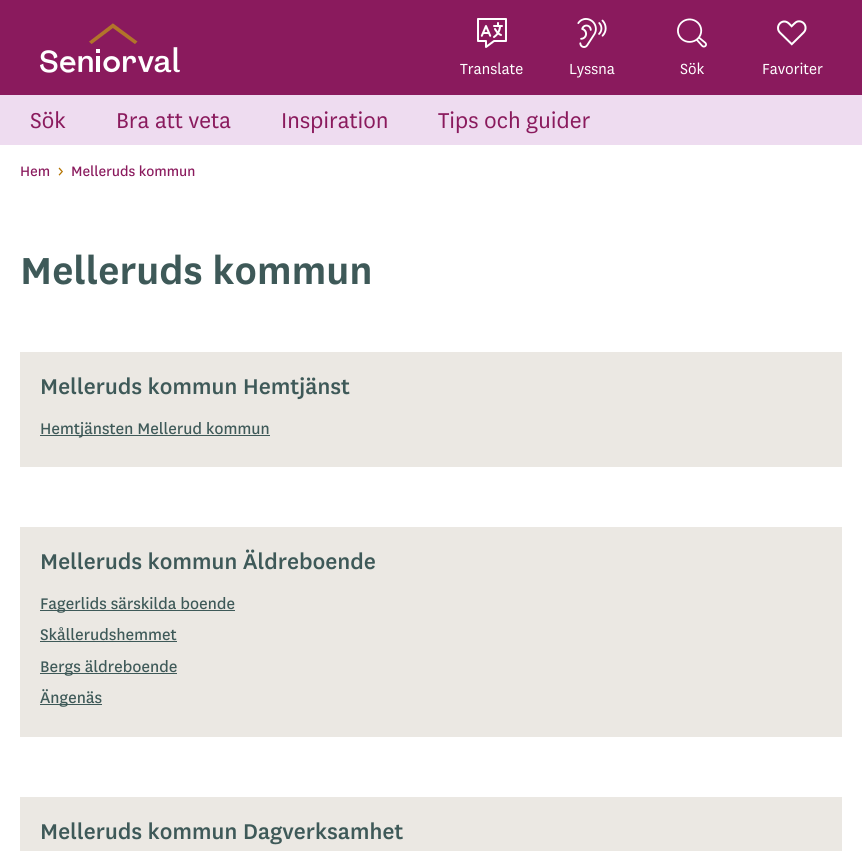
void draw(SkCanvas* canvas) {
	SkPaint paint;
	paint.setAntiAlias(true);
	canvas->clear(0xffffffff);
	paint.setColor(0xff8a1a5d);
	canvas->drawRect(SkRect::MakeXYWH(0, 0, 862, 95), paint);
	canvas->drawImageRect(SkImages::DeferredFromEncodedData(SkData::MakeFromFileName("img1.png")), SkRect::MakeXYWH(40, 23, 140, 50), SkSamplingOptions());
	canvas->drawImageRect(SkImages::DeferredFromEncodedData(SkData::MakeFromFileName("img2.png")), SkRect::MakeXYWH(477, 18, 30, 30), SkSamplingOptions());
	canvas->drawImageRect(SkImages::DeferredFromEncodedData(SkData::MakeFromFileName("img3.png")), SkRect::MakeXYWH(460, 62, 63, 13), SkSamplingOptions());
	canvas->drawImageRect(SkImages::DeferredFromEncodedData(SkData::MakeFromFileName("img4.png")), SkRect::MakeXYWH(577, 18, 30, 30), SkSamplingOptions());
	canvas->drawImageRect(SkImages::DeferredFromEncodedData(SkData::MakeFromFileName("img5.png")), SkRect::MakeXYWH(570, 63, 45, 15), SkSamplingOptions());
	canvas->drawImageRect(SkImages::DeferredFromEncodedData(SkData::MakeFromFileName("img6.png")), SkRect::MakeXYWH(677, 18, 30, 30), SkSamplingOptions());
	canvas->drawImageRect(SkImages::DeferredFromEncodedData(SkData::MakeFromFileName("img7.png")), SkRect::MakeXYWH(680, 62, 24, 13), SkSamplingOptions());
	canvas->drawImageRect(SkImages::DeferredFromEncodedData(SkData::MakeFromFileName("img8.png")), SkRect::MakeXYWH(777, 20, 30, 26), SkSamplingOptions());
	canvas->drawImageRect(SkImages::DeferredFromEncodedData(SkData::MakeFromFileName("img9.png")), SkRect::MakeXYWH(763, 62, 60, 13), SkSamplingOptions());
	paint.setColor(0xffeedcf0);
	canvas->drawRect(SkRect::MakeXYWH(0, 95, 862, 50), paint);
	canvas->drawImageRect(SkImages::DeferredFromEncodedData(SkData::MakeFromFileName("img10.png")), SkRect::MakeXYWH(30, 111, 36, 18), SkSamplingOptions());
	canvas->drawImageRect(SkImages::DeferredFromEncodedData(SkData::MakeFromFileName("img11.png")), SkRect::MakeXYWH(118, 113, 113, 16), SkSamplingOptions());
	canvas->drawImageRect(SkImages::DeferredFromEncodedData(SkData::MakeFromFileName("img12.png")), SkRect::MakeXYWH(283, 111, 104, 23), SkSamplingOptions());
	canvas->drawImageRect(SkImages::DeferredFromEncodedData(SkData::MakeFromFileName("img13.png")), SkRect::MakeXYWH(438, 111, 152, 23), SkSamplingOptions());
	canvas->drawImageRect(SkImages::DeferredFromEncodedData(SkData::MakeFromFileName("img14.png")), SkRect::MakeXYWH(21, 166, 29, 11), SkSamplingOptions());
	canvas->drawImageRect(SkImages::DeferredFromEncodedData(SkData::MakeFromFileName("img15.png")), SkRect::MakeXYWH(58, 167, 5, 9), SkSamplingOptions());
	canvas->drawImageRect(SkImages::DeferredFromEncodedData(SkData::MakeFromFileName("img16.png")), SkRect::MakeXYWH(72, 165, 123, 12), SkSamplingOptions());
	canvas->drawImageRect(SkImages::DeferredFromEncodedData(SkData::MakeFromFileName("img17.png")), SkRect::MakeXYWH(23, 254, 347, 31), SkSamplingOptions());
	paint.setColor(0xffebe8e3);
	canvas->drawRect(SkRect::MakeXYWH(20, 352, 822, 115), paint);
	canvas->drawImageRect(SkImages::DeferredFromEncodedData(SkData::MakeFromFileName("img18.png")), SkRect::MakeXYWH(42, 377, 308, 23), SkSamplingOptions());
	paint.setColor(0xff3e5958);
	canvas->drawRect(SkRect::MakeXYWH(40, 435, 230, 1), paint);
	canvas->drawImageRect(SkImages::DeferredFromEncodedData(SkData::MakeFromFileName("img19.png")), SkRect::MakeXYWH(41, 422, 228, 16), SkSamplingOptions());
	paint.setColor(0xffebe8e3);
	canvas->drawRect(SkRect::MakeXYWH(20, 527, 822, 210), paint);
	canvas->drawImageRect(SkImages::DeferredFromEncodedData(SkData::MakeFromFileName("img20.png")), SkRect::MakeXYWH(42, 549, 333, 21), SkSamplingOptions());
	paint.setColor(0xff3e5958);
	canvas->drawRect(SkRect::MakeXYWH(40, 610, 195, 1), paint);
	canvas->drawImageRect(SkImages::DeferredFromEncodedData(SkData::MakeFromFileName("img21.png")), SkRect::MakeXYWH(41, 597, 194, 16), SkSamplingOptions());
	canvas->drawImageRect(SkImages::DeferredFromEncodedData(SkData::MakeFromFileName("img22.png")), SkRect::MakeXYWH(40, 627, 137, 14), SkSamplingOptions());
	canvas->drawRect(SkRect::MakeXYWH(40, 641, 137, 1), paint);
	canvas->drawRect(SkRect::MakeXYWH(40, 673, 137, 1), paint);
	canvas->drawImageRect(SkImages::DeferredFromEncodedData(SkData::MakeFromFileName("img23.png")), SkRect::MakeXYWH(41, 660, 136, 16), SkSamplingOptions());
	canvas->drawRect(SkRect::MakeXYWH(40, 704, 62, 1), paint);
	canvas->drawImageRect(SkImages::DeferredFromEncodedData(SkData::MakeFromFileName("img24.png")), SkRect::MakeXYWH(40, 689, 62, 18), SkSamplingOptions());
	paint.setColor(0xffebe8e3);
	canvas->drawRect(SkRect::MakeXYWH(20, 797, 822, 54), paint);
	canvas->drawImageRect(SkImages::DeferredFromEncodedData(SkData::MakeFromFileName("img25.png")), SkRect::MakeXYWH(42, 822, 361, 23), SkSamplingOptions());
}
